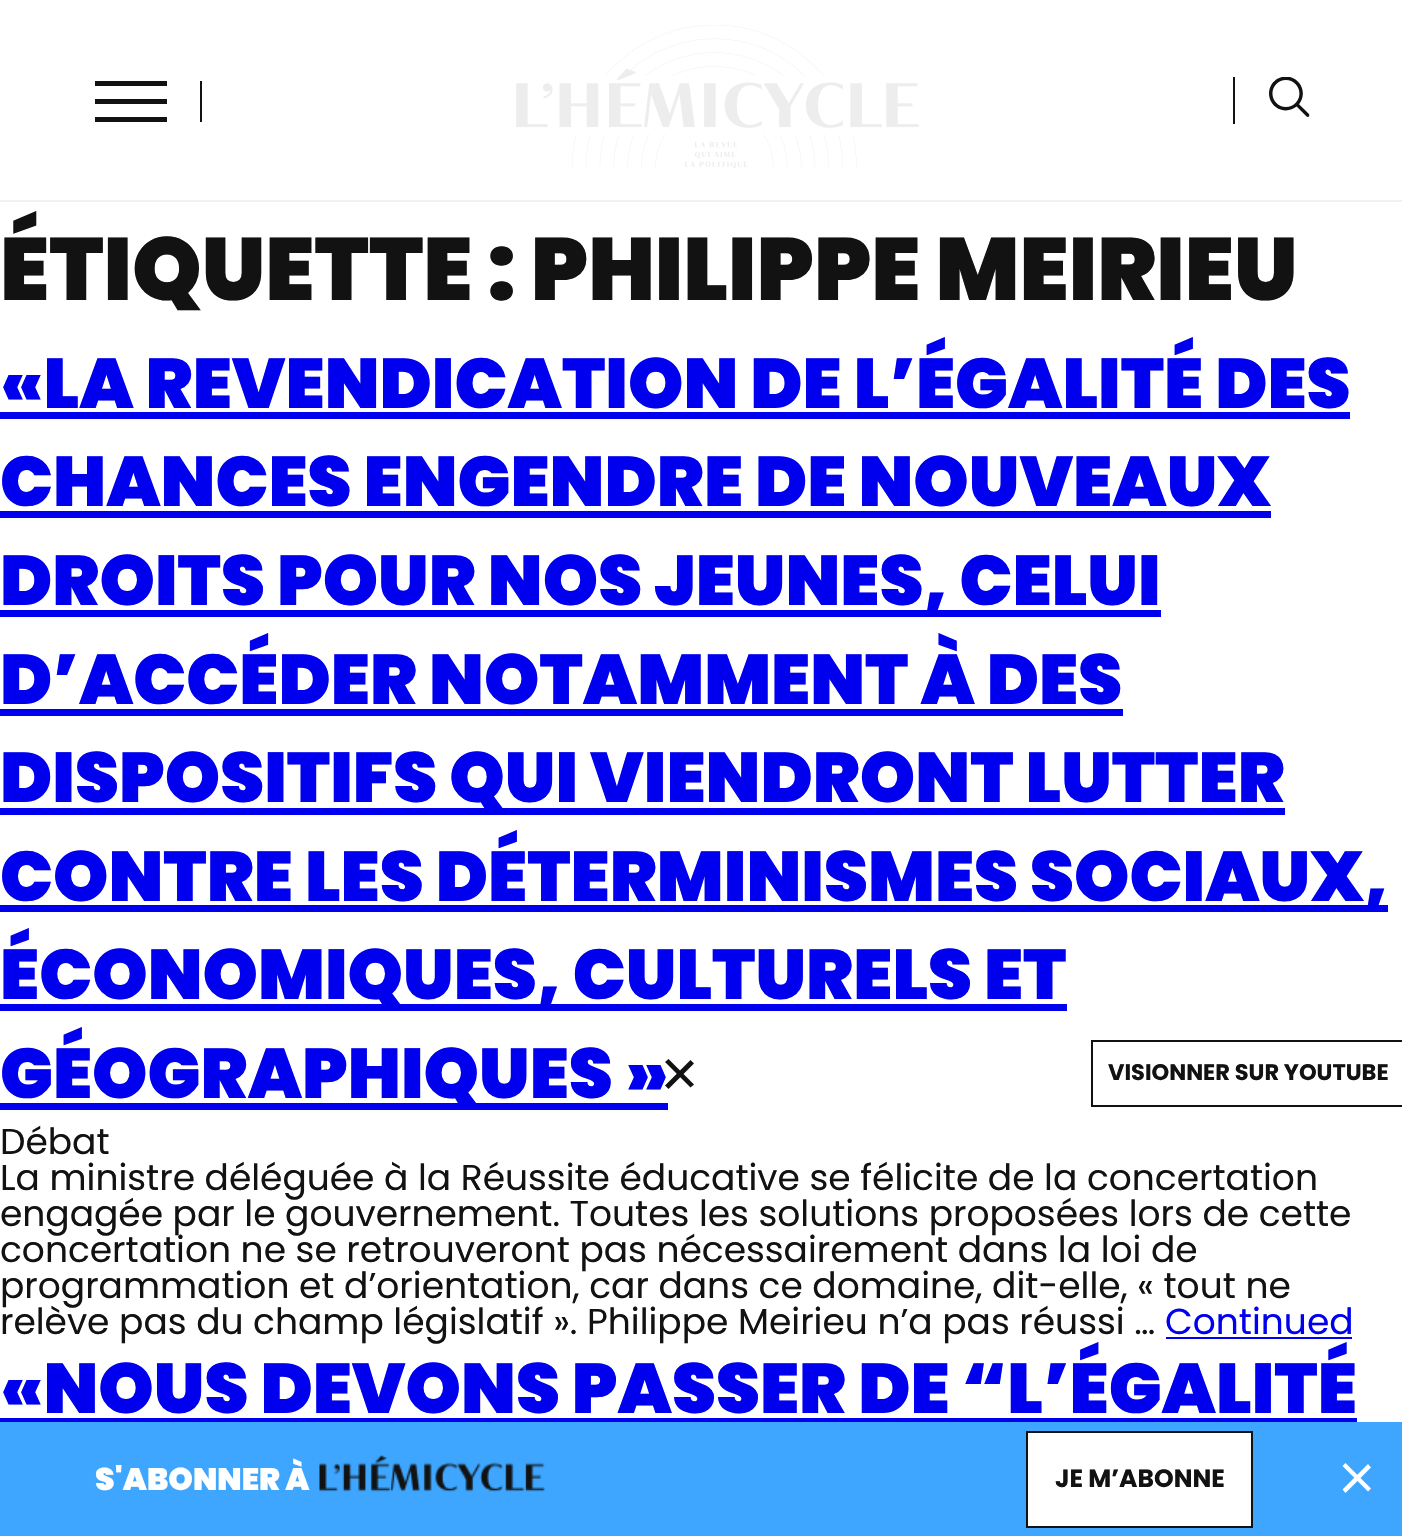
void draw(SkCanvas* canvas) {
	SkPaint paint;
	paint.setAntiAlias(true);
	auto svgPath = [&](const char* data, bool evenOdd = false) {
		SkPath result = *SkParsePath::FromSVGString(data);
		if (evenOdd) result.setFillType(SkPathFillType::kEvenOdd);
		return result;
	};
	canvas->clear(0xffffffff);
	paint.setColor(0xfff1f1f1);
	canvas->drawRect(SkRect::MakeXYWH(0, 200, 1402, 2), paint);
	paint.setColor(0xff121212);
	canvas->drawRect(SkRect::MakeXYWH(95, 81, 72, 5), paint);
	canvas->drawRect(SkRect::MakeXYWH(95, 99, 72, 5), paint);
	canvas->drawRect(SkRect::MakeXYWH(95, 117, 72, 5), paint);
	canvas->drawRect(SkRect::MakeXYWH(200, 81, 2, 41), paint);
	canvas->drawImageRect(SkImages::DeferredFromEncodedData(SkData::MakeFromFileName("img1.png")), SkRect::MakeXYWH(516, 25, 403, 143), SkSamplingOptions());
	canvas->drawRect(SkRect::MakeXYWH(1233, 77, 2, 47), paint);
	canvas->drawImageRect(SkImages::DeferredFromEncodedData(SkData::MakeFromFileName("img2.png")), SkRect::MakeXYWH(1269, 77, 41, 40), SkSamplingOptions());
	SkFont f1(fontMgr->matchFamilyStyle("Poppins", SkFontStyle(900, SkFontStyle::kNormal_Width, SkFontStyle::kUpright_Slant)), 88.4);
	f1.setSubpixel(true);
	canvas->drawString("ÉTIQUETTE : PHILIPPE MEIRIEU", 0, 300, f1, paint);
	SkFont f2(fontMgr->matchFamilyStyle("Poppins", SkFontStyle(900, SkFontStyle::kNormal_Width, SkFontStyle::kUpright_Slant)), 70.4);
	f2.setSubpixel(true);
	paint.setColor(0xff0000ee);
	canvas->drawString("«LA REVENDICATION DE L’ÉGALITÉ DES", 0, 408, f2, paint);
	canvas->drawRect(SkRect::MakeXYWH(0, 412, 1350, 7), paint);
	canvas->drawString("CHANCES ENGENDRE DE NOUVEAUX", 0, 506, f2, paint);
	canvas->drawRect(SkRect::MakeXYWH(0, 511, 1271, 7), paint);
	canvas->drawRect(SkRect::MakeXYWH(0, 610, 1161, 7), paint);
	canvas->drawString("DROITS POUR NOS JEUNES, CELUI", 0, 605, f2, paint);
	canvas->drawString("D’ACCÉDER NOTAMMENT À DES", 0, 704, f2, paint);
	canvas->drawRect(SkRect::MakeXYWH(0, 709, 1123, 7), paint);
	canvas->drawRect(SkRect::MakeXYWH(0, 808, 1285, 7), paint);
	canvas->drawString("DISPOSITIFS QUI VIENDRONT LUTTER", 0, 802, f2, paint);
	canvas->drawRect(SkRect::MakeXYWH(0, 905, 1388, 7), paint);
	canvas->drawString("CONTRE LES DÉTERMINISMES SOCIAUX,", 0, 901, f2, paint);
	canvas->drawRect(SkRect::MakeXYWH(0, 1004, 1067, 7), paint);
	canvas->drawString("ÉCONOMIQUES, CULTURELS ET", 0, 999, f2, paint);
	canvas->drawRect(SkRect::MakeXYWH(0, 1103, 668, 7), paint);
	canvas->drawString("GÉOGRAPHIQUES »", 0, 1098, f2, paint);
	SkFont f3(fontMgr->matchFamilyStyle("Poppins", SkFontStyle::Normal()), 36);
	f3.setSubpixel(true);
	paint.setColor(0xff121212);
	canvas->drawString("Débat", 0, 1154, f3, paint);
	canvas->drawString("La ministre déléguée à la Réussite éducative se félicite de la concertation", 0, 1190, f3, paint);
	canvas->drawString("engagée par le gouvernement. Toutes les solutions proposées lors de cette", 0, 1226, f3, paint);
	canvas->drawString("concertation ne se retrouveront pas nécessairement dans la loi de", 0, 1262, f3, paint);
	canvas->drawString("programmation et d’orientation, car dans ce domaine, dit-elle, « tout ne", 0, 1298, f3, paint);
	canvas->drawString("relève pas du champ législatif ». Philippe Meirieu n’a pas réussi …", 0, 1334, f3, paint);
	paint.setColor(0xff0000ee);
	canvas->drawString("Continued", 1165, 1334, f3, paint);
	canvas->drawRect(SkRect::MakeXYWH(1166, 1337, 186, 2), paint);
	paint.setColor(0xff121212);
	canvas->drawPath(svgPath("M668.5 1059L694 1084.5L690.5 1087.5L665 1062Z"), paint);
	canvas->drawPath(svgPath("M665 1085.5L690.5 1060L694 1063.5L668.5 1089Z"), paint);
	paint.setStroke(true);
	paint.setStrokeWidth(2);
	canvas->drawRect(SkRect::MakeXYWH(1092, 1041, 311, 65), paint);
	SkFont f4(fontMgr->matchFamilyStyle("Poppins", SkFontStyle::Bold()), 22.5);
	f4.setSubpixel(true);
	paint.setStroke(false);
	canvas->drawString("VISIONNER SUR YOUTUBE", 1108, 1080, f4, paint);
	paint.setColor(0xff0000ee);
	canvas->drawString("«NOUS DEVONS PASSER DE “L’ÉGALITÉ", 0, 1413, f2, paint);
	canvas->drawRect(SkRect::MakeXYWH(0, 1418, 1357, 4), paint);
	paint.setColor(0xff3ea6ff);
	canvas->drawRect(SkRect::MakeXYWH(0, 1422, 1402, 114), paint);
	SkFont f5(fontMgr->matchFamilyStyle("Poppins", SkFontStyle(900, SkFontStyle::kNormal_Width, SkFontStyle::kUpright_Slant)), 31.25);
	f5.setSubpixel(true);
	paint.setColor(0xffffffff);
	canvas->drawString("S'ABONNER À", 95, 1490, f5, paint);
	canvas->drawImageRect(SkImages::DeferredFromEncodedData(SkData::MakeFromFileName("img3.png")), SkRect::MakeXYWH(319, 1455, 226, 37), SkSamplingOptions());
	canvas->drawRect(SkRect::MakeXYWH(1027, 1432, 225, 95), paint);
	paint.setStroke(true);
	paint.setColor(0xff121212);
	canvas->drawRect(SkRect::MakeXYWH(1027, 1432, 225, 95), paint);
	SkFont f6(fontMgr->matchFamilyStyle("Poppins", SkFontStyle::Bold()), 25);
	f6.setSubpixel(true);
	paint.setStroke(false);
	canvas->drawString("JE M’ABONNE", 1055, 1487, f6, paint);
	paint.setColor(0xffffffff);
	canvas->drawPath(svgPath("M1345.5 1463L1371 1488.5L1368 1491.5L1342.5 1466Z"), paint);
	canvas->drawPath(svgPath("M1342.5 1489.5L1368 1464L1371 1467.5L1345.5 1493Z"), paint);
}
